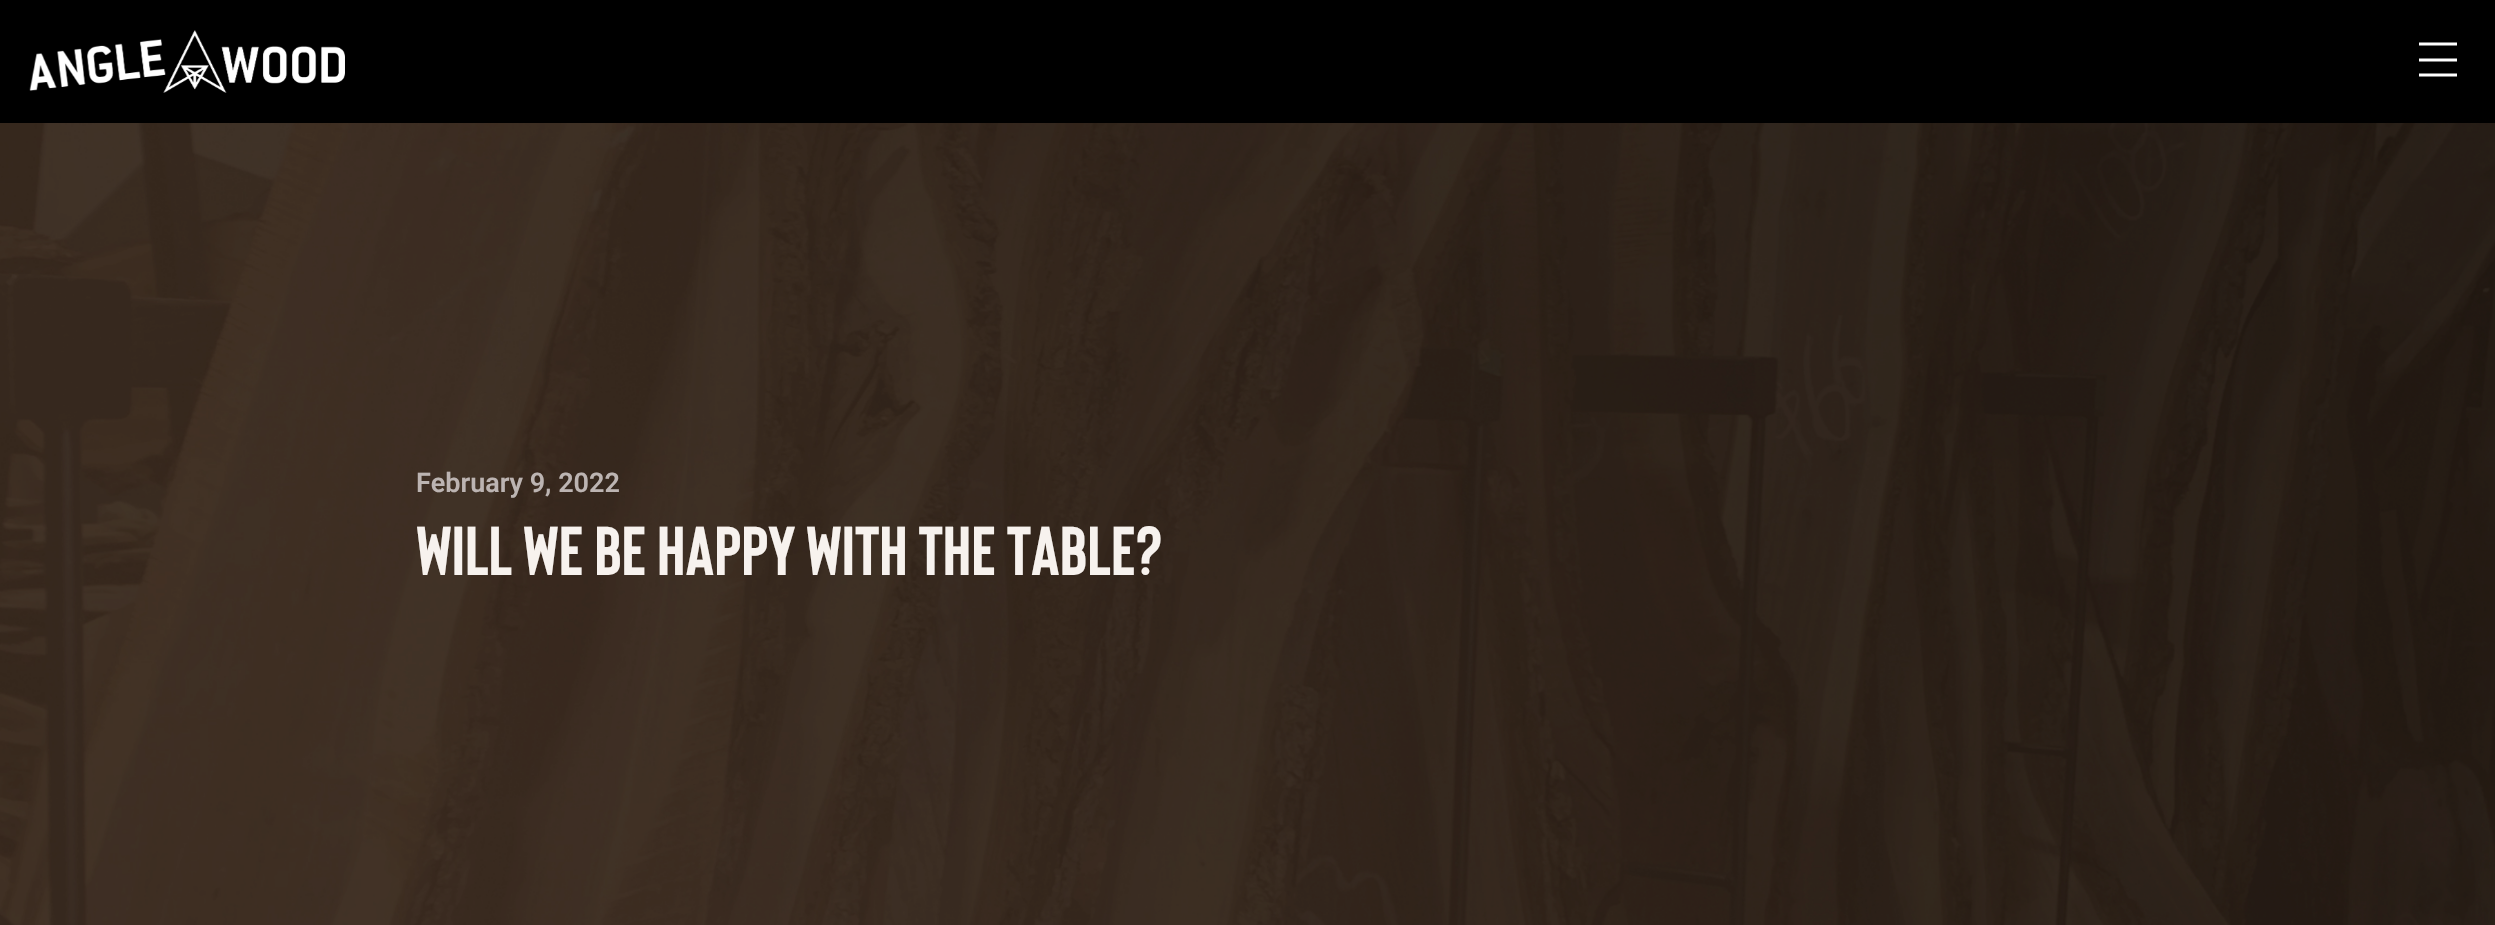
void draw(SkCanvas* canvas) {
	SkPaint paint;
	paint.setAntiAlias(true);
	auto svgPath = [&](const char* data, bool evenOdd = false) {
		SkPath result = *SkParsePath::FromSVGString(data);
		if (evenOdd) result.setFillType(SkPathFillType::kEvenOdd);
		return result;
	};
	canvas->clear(0xffffffff);
	paint.setColor(0xff000000);
	canvas->drawRect(SkRect::MakeXYWH(0, 0, 2495, 123), paint);
	canvas->drawImageRect(SkImages::DeferredFromEncodedData(SkData::MakeFromFileName("img1.png")), SkRect::MakeXYWH(29, 30, 316, 63), SkSamplingOptions());
	paint.setStroke(true);
	paint.setStrokeWidth(3);
	paint.setColor(0xffffffff);
	canvas->drawPath(svgPath("M2419 44H2457M2419 60H2457M2419 75H2457"), paint);
	canvas->drawImageRect(SkImages::DeferredFromEncodedData(SkData::MakeFromFileName("img2.png")), SkRect::MakeXYWH(0, 123, 2495, 802), SkSamplingOptions());
	SkFont f1(fontMgr->matchFamilyStyle("Roboto", SkFontStyle(600, SkFontStyle::kNormal_Width, SkFontStyle::kUpright_Slant)), 27);
	f1.setSubpixel(true);
	paint.setStroke(false);
	paint.setColor(0xffbcb4b2);
	canvas->drawString("February 9, 2022", 416, 492, f1, paint);
	SkFont f2(fontMgr->matchFamilyStyle("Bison", SkFontStyle::Bold()), 69);
	f2.setSubpixel(true);
	paint.setColor(0xfff7f2ee);
	canvas->drawString("Will we be happy with the table?", 416, 575, f2, paint);
}
